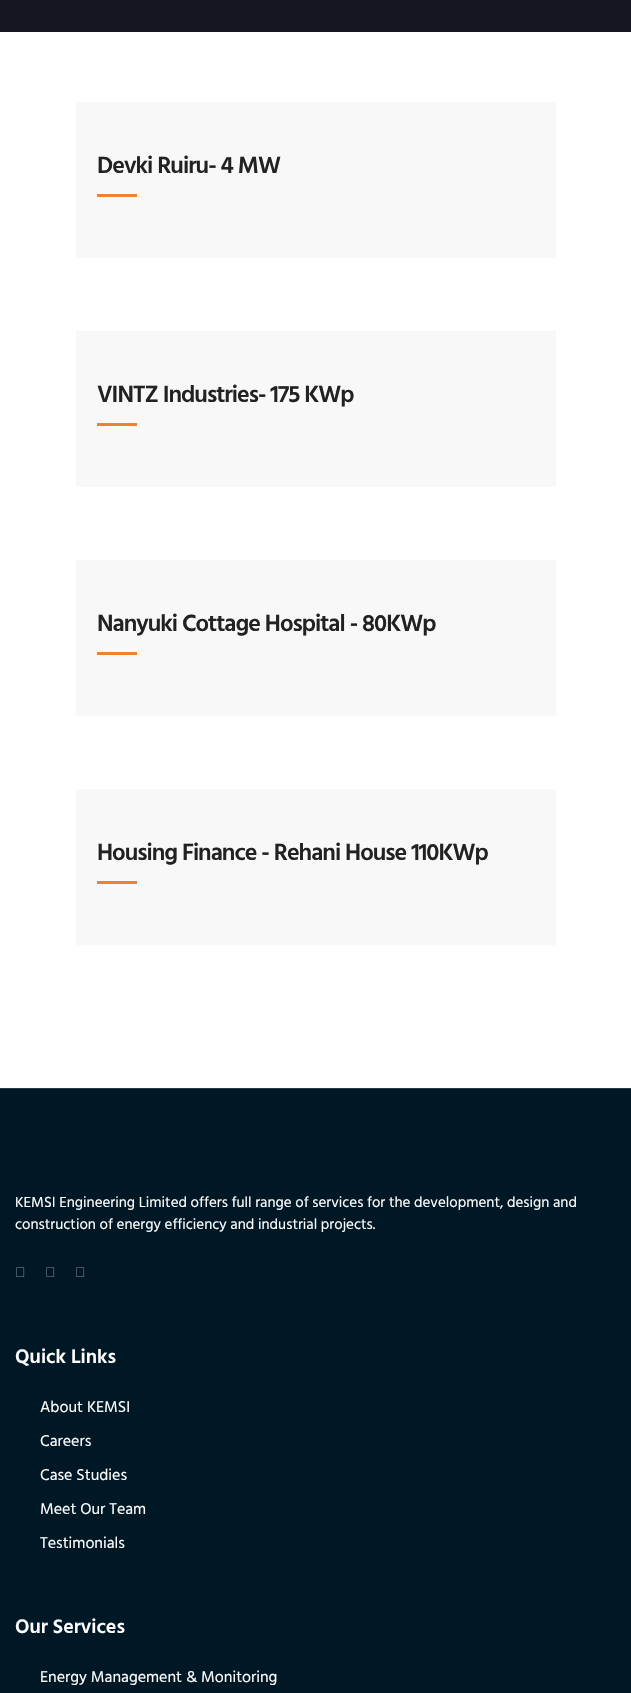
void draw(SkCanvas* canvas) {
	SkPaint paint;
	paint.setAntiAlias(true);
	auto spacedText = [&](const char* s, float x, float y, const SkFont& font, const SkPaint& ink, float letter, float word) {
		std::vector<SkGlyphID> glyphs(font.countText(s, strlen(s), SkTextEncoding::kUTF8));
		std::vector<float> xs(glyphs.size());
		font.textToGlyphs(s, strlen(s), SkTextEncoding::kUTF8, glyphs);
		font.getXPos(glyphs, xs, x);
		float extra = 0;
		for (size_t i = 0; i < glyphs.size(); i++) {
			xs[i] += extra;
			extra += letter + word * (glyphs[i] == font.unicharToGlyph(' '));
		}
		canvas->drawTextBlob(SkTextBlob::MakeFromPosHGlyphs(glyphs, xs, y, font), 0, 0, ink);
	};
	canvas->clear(0xffffffff);
	paint.setColor(0xff141620);
	canvas->drawRect(SkRect::MakeXYWH(0, 0, 631, 32), paint);
	paint.setColor(0xfff8f8f8);
	canvas->drawRect(SkRect::MakeXYWH(76, 102, 480, 156), paint);
	SkFont f1(fontMgr->matchFamilyStyle("Hind", SkFontStyle(600, SkFontStyle::kNormal_Width, SkFontStyle::kUpright_Slant)), 24);
	f1.setSubpixel(true);
	paint.setColor(0xff222222);
	spacedText("Devki Ruiru- 4 MW", 97, 173, f1, paint, -1, 0);
	paint.setColor(0xffef8131);
	canvas->drawRect(SkRect::MakeXYWH(97, 194, 40, 3), paint);
	paint.setColor(0xfff8f8f8);
	canvas->drawRect(SkRect::MakeXYWH(76, 331, 480, 156), paint);
	paint.setColor(0xff222222);
	spacedText("VINTZ Industries- 175 KWp", 97, 402, f1, paint, -1, 0);
	paint.setColor(0xffef8131);
	canvas->drawRect(SkRect::MakeXYWH(97, 423, 40, 3), paint);
	paint.setColor(0xfff8f8f8);
	canvas->drawRect(SkRect::MakeXYWH(76, 560, 480, 156), paint);
	paint.setColor(0xff222222);
	spacedText("Nanyuki Cottage Hospital - 80KWp", 97, 631, f1, paint, -1, 0);
	paint.setColor(0xffef8131);
	canvas->drawRect(SkRect::MakeXYWH(97, 652, 40, 3), paint);
	paint.setColor(0xfff8f8f8);
	canvas->drawRect(SkRect::MakeXYWH(76, 789, 480, 156), paint);
	paint.setColor(0xff222222);
	spacedText("Housing Finance - Rehani House 110KWp", 97, 860, f1, paint, -1, 0);
	paint.setColor(0xffef8131);
	canvas->drawRect(SkRect::MakeXYWH(97, 881, 40, 3), paint);
	paint.setColor(0xff001826);
	canvas->drawRect(SkRect::MakeXYWH(0, 1089, 631, 604), paint);
	paint.setColor(0xff263b47);
	canvas->drawRect(SkRect::MakeXYWH(0, 1088, 631, 1), paint);
	SkFont f2(fontMgr->matchFamilyStyle("Hind", SkFontStyle::Normal()), 15);
	f2.setSubpixel(true);
	paint.setColor(0xffffffff);
	canvas->drawString("KEMSI Engineering Limited offers full range of services for the development, design and", 15, 1207, f2, paint);
	canvas->drawString("construction of energy efficiency and industrial projects.", 15, 1229, f2, paint);
	canvas->drawImageRect(SkImages::DeferredFromEncodedData(SkData::MakeFromFileName("img1.png")), SkRect::MakeXYWH(16, 1267, 9, 10), SkSamplingOptions());
	canvas->drawImageRect(SkImages::DeferredFromEncodedData(SkData::MakeFromFileName("img1.png")), SkRect::MakeXYWH(46, 1267, 9, 10), SkSamplingOptions());
	canvas->drawImageRect(SkImages::DeferredFromEncodedData(SkData::MakeFromFileName("img1.png")), SkRect::MakeXYWH(76, 1267, 9, 10), SkSamplingOptions());
	SkFont f3(fontMgr->matchFamilyStyle("Hind", SkFontStyle(600, SkFontStyle::kNormal_Width, SkFontStyle::kUpright_Slant)), 20);
	f3.setSubpixel(true);
	canvas->drawString("Quick Links", 15, 1363, f3, paint);
	SkFont f4(fontMgr->matchFamilyStyle("Hind", SkFontStyle::Normal()), 16);
	f4.setSubpixel(true);
	canvas->drawString("About KEMSI", 40, 1412, f4, paint);
	canvas->drawString("Careers", 40, 1446, f4, paint);
	canvas->drawString("Case Studies", 40, 1480, f4, paint);
	canvas->drawString("Meet Our Team", 40, 1514, f4, paint);
	canvas->drawString("Testimonials", 40, 1548, f4, paint);
	canvas->drawString("Our Services", 15, 1633, f3, paint);
	canvas->drawString("Energy Management & Monitoring", 40, 1682, f4, paint);
}
